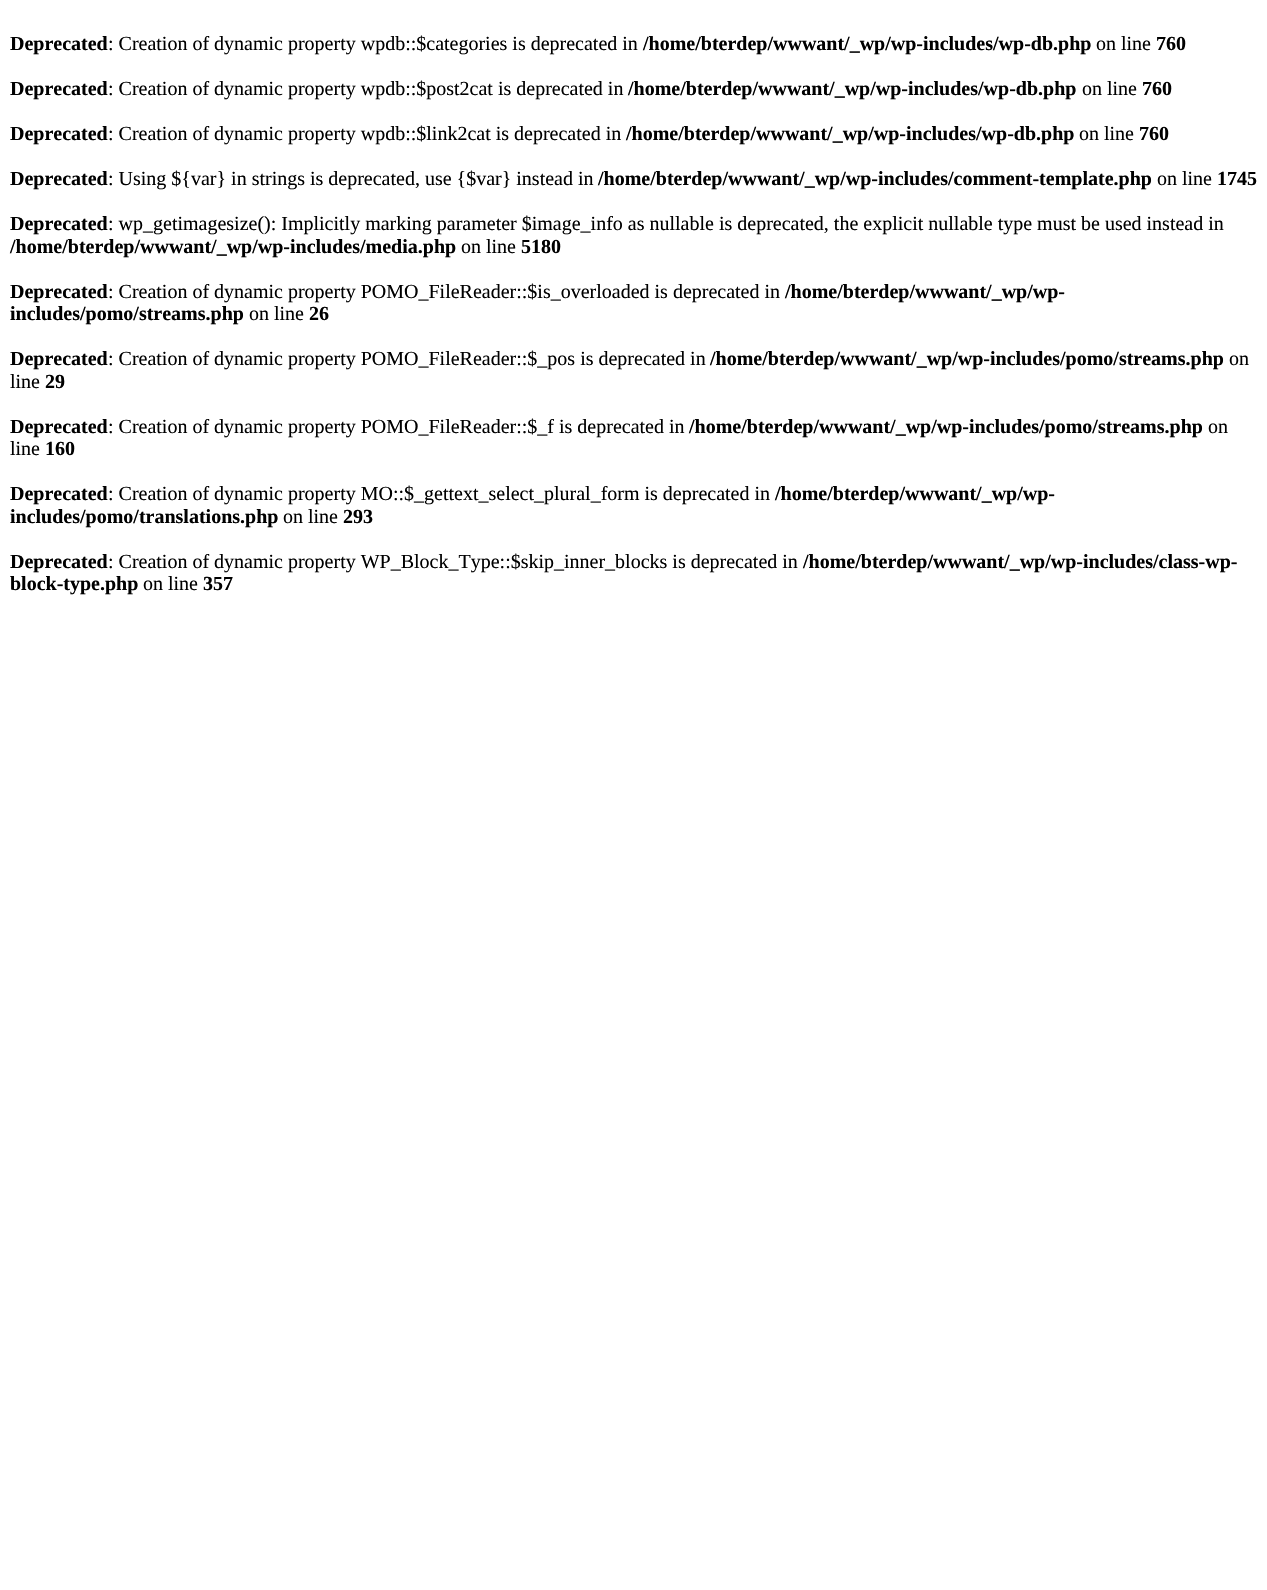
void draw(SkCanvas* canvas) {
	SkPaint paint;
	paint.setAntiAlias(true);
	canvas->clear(0xffffffff);
	SkFont f1(fontMgr->matchFamilyStyle("Liberation Serif", SkFontStyle::Bold()), 20);
	f1.setSubpixel(true);
	paint.setColor(0xff000000);
	canvas->drawString("Deprecated", 10, 50, f1, paint);
	SkFont f2(fontMgr->matchFamilyStyle("Liberation Serif", SkFontStyle::Normal()), 20);
	f2.setSubpixel(true);
	canvas->drawString(": Creation of dynamic property wpdb::$categories is deprecated in", 108, 50, f2, paint);
	canvas->drawString("/home/bterdep/wwwant/_wp/wp-includes/wp-db.php", 643, 50, f1, paint);
	canvas->drawString("on line", 1096, 50, f2, paint);
	canvas->drawString("760", 1156, 50, f1, paint);
	canvas->drawString("Deprecated", 10, 95, f1, paint);
	canvas->drawString(": Creation of dynamic property wpdb::$post2cat is deprecated in", 108, 95, f2, paint);
	canvas->drawString("/home/bterdep/wwwant/_wp/wp-includes/wp-db.php", 628, 95, f1, paint);
	canvas->drawString("on line", 1082, 95, f2, paint);
	canvas->drawString("760", 1142, 95, f1, paint);
	canvas->drawString("Deprecated", 10, 140, f1, paint);
	canvas->drawString(": Creation of dynamic property wpdb::$link2cat is deprecated in", 108, 140, f2, paint);
	canvas->drawString("/home/bterdep/wwwant/_wp/wp-includes/wp-db.php", 626, 140, f1, paint);
	canvas->drawString("on line", 1079, 140, f2, paint);
	canvas->drawString("760", 1139, 140, f1, paint);
	canvas->drawString("Deprecated", 10, 185, f1, paint);
	canvas->drawString(": Using ${var} in strings is deprecated, use {$var} instead in", 108, 185, f2, paint);
	canvas->drawString("/home/bterdep/wwwant/_wp/wp-includes/comment-template.php", 598, 185, f1, paint);
	canvas->drawString("on line", 1157, 185, f2, paint);
	canvas->drawString("1745", 1217, 185, f1, paint);
	canvas->drawString("Deprecated", 10, 230, f1, paint);
	canvas->drawString(": wp_getimagesize(): Implicitly marking parameter $image_info as nullable is deprecated, the explicit nullable type must be used instead in", 108, 230, f2, paint);
	canvas->drawString("/home/bterdep/wwwant/_wp/wp-includes/media.php", 10, 253, f1, paint);
	canvas->drawString("on line", 461, 253, f2, paint);
	canvas->drawString("5180", 521, 253, f1, paint);
	canvas->drawString("Deprecated", 10, 298, f1, paint);
	canvas->drawString(": Creation of dynamic property POMO_FileReader::$is_overloaded is deprecated in", 108, 298, f2, paint);
	canvas->drawString("/home/bterdep/wwwant/_wp/wp-", 785, 298, f1, paint);
	canvas->drawString("includes/pomo/streams.php", 10, 320, f1, paint);
	canvas->drawString("on line", 249, 320, f2, paint);
	canvas->drawString("26", 309, 320, f1, paint);
	canvas->drawString("Deprecated", 10, 365, f1, paint);
	canvas->drawString(": Creation of dynamic property POMO_FileReader::$_pos is deprecated in", 108, 365, f2, paint);
	canvas->drawString("/home/bterdep/wwwant/_wp/wp-includes/pomo/streams.php", 710, 365, f1, paint);
	canvas->drawString("on", 1229, 365, f2, paint);
	canvas->drawString("line", 10, 388, f2, paint);
	canvas->drawString("29", 45, 388, f1, paint);
	canvas->drawString("Deprecated", 10, 433, f1, paint);
	canvas->drawString(": Creation of dynamic property POMO_FileReader::$_f is deprecated in", 108, 433, f2, paint);
	canvas->drawString("/home/bterdep/wwwant/_wp/wp-includes/pomo/streams.php", 689, 433, f1, paint);
	canvas->drawString("on", 1208, 433, f2, paint);
	canvas->drawString("line", 10, 455, f2, paint);
	canvas->drawString("160", 45, 455, f1, paint);
	canvas->drawString("Deprecated", 10, 500, f1, paint);
	canvas->drawString(": Creation of dynamic property MO::$_gettext_select_plural_form is deprecated in", 108, 500, f2, paint);
	canvas->drawString("/home/bterdep/wwwant/_wp/wp-", 775, 500, f1, paint);
	canvas->drawString("includes/pomo/translations.php", 10, 523, f1, paint);
	canvas->drawString("on line", 283, 523, f2, paint);
	canvas->drawString("293", 343, 523, f1, paint);
	canvas->drawString("Deprecated", 10, 568, f1, paint);
	canvas->drawString(": Creation of dynamic property WP_Block_Type::$skip_inner_blocks is deprecated in", 108, 568, f2, paint);
	canvas->drawString("/home/bterdep/wwwant/_wp/wp-includes/class-wp-", 803, 568, f1, paint);
	canvas->drawString("block-type.php", 10, 590, f1, paint);
	canvas->drawString("on line", 143, 590, f2, paint);
	canvas->drawString("357", 203, 590, f1, paint);
}
